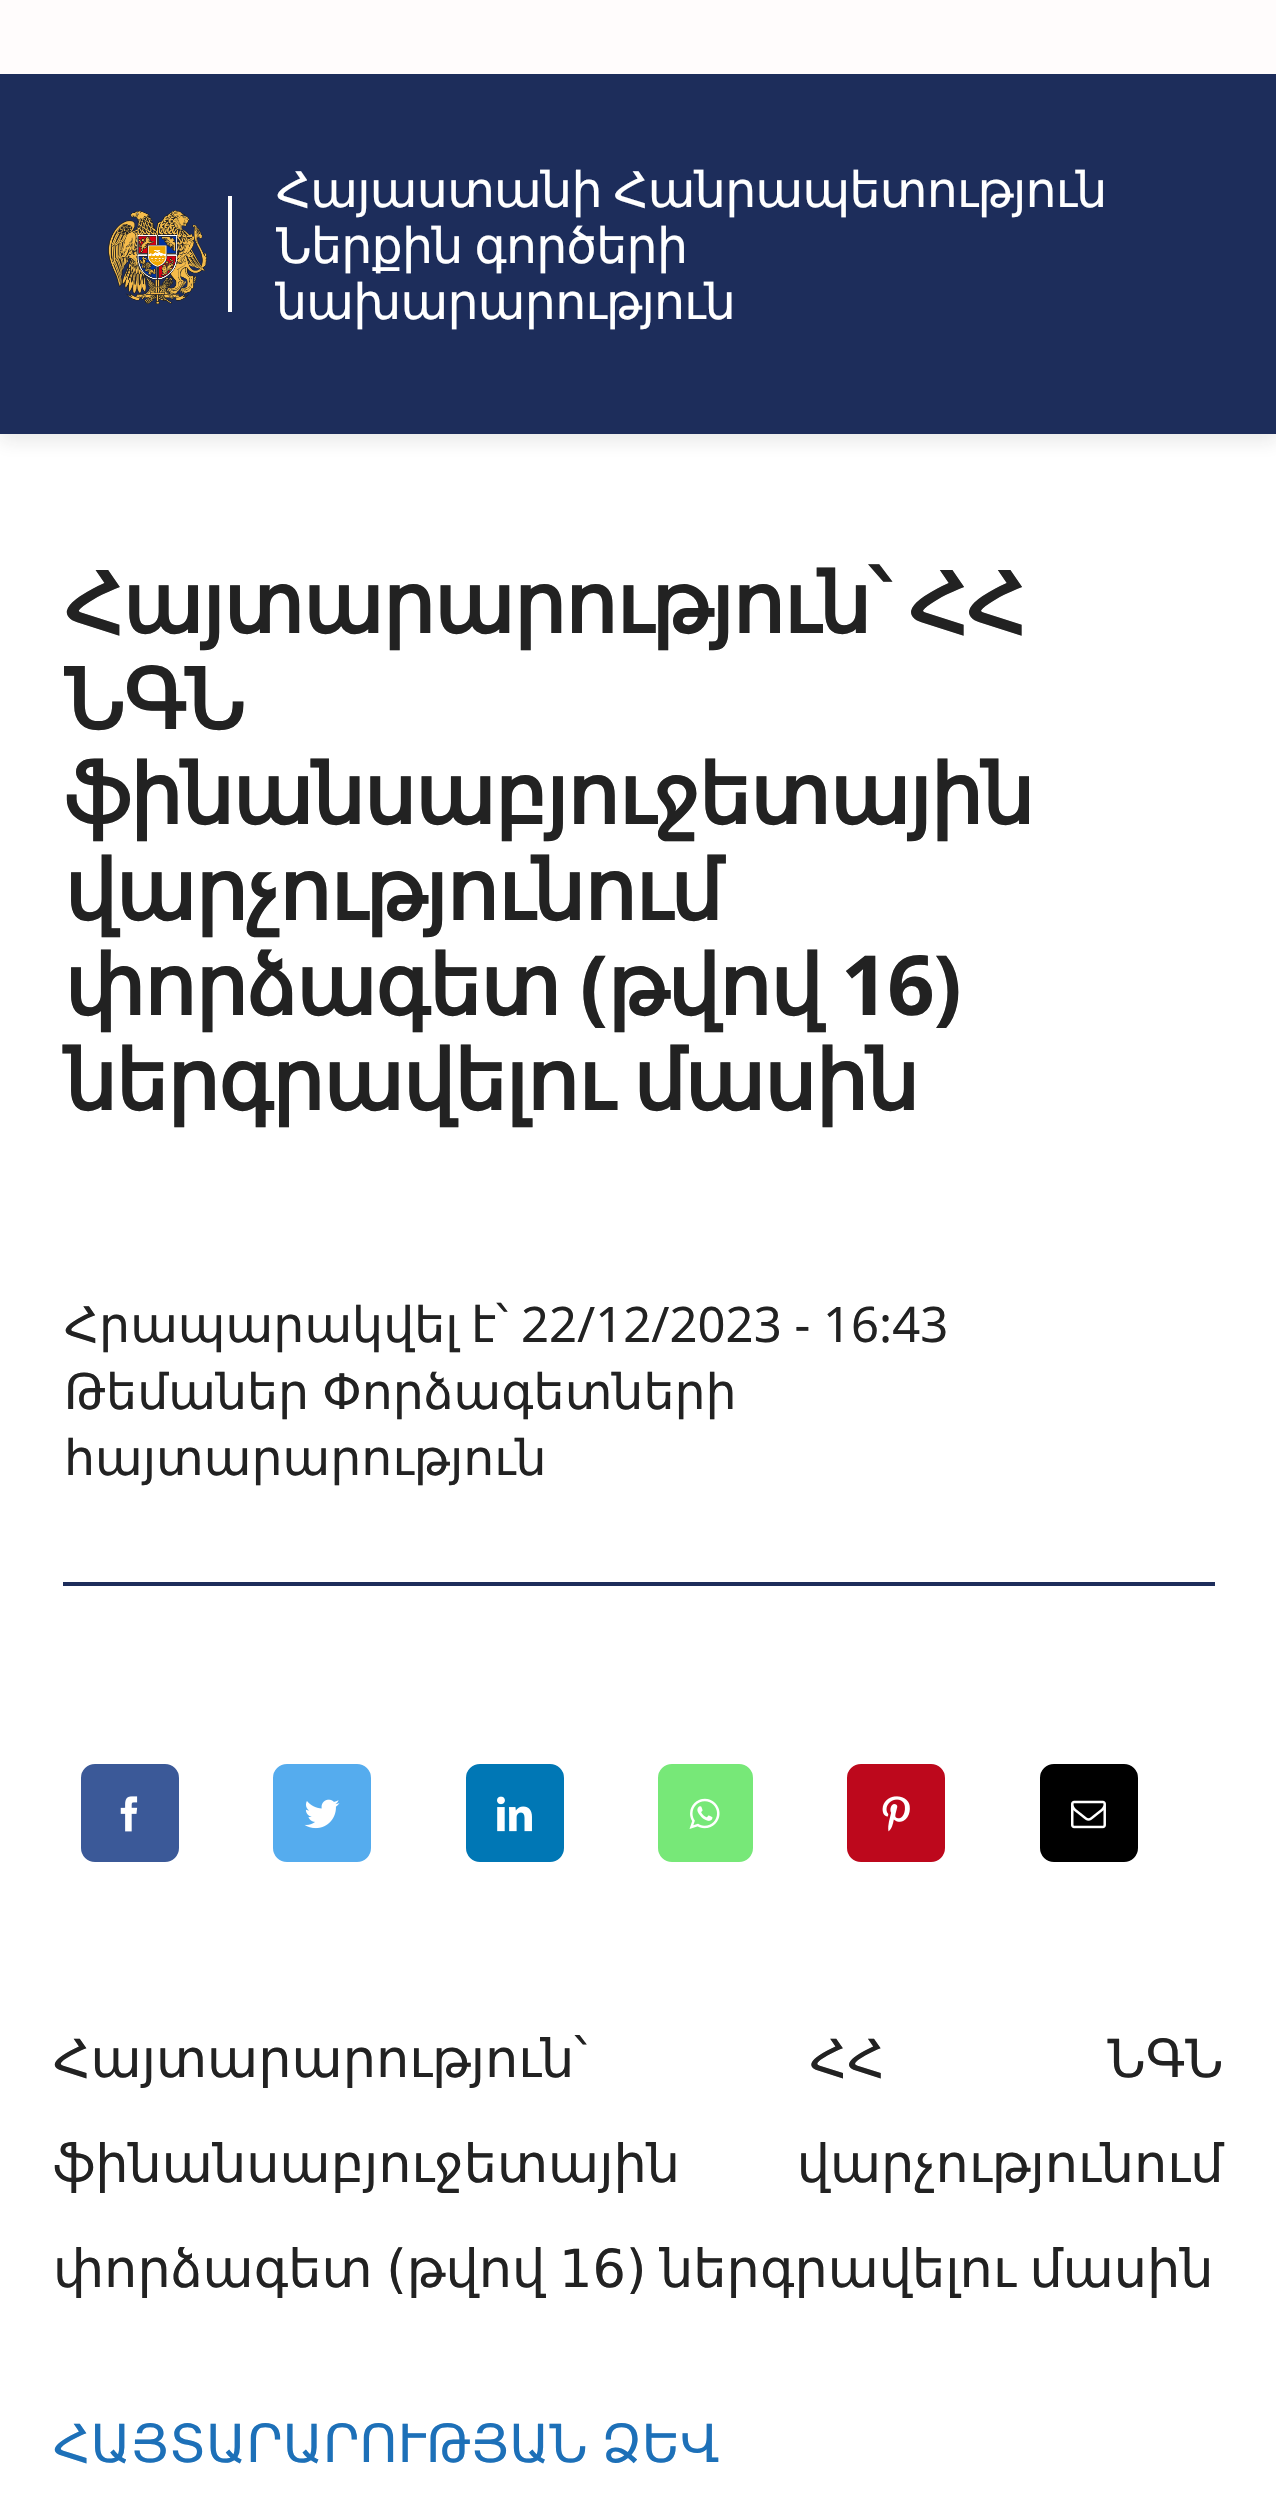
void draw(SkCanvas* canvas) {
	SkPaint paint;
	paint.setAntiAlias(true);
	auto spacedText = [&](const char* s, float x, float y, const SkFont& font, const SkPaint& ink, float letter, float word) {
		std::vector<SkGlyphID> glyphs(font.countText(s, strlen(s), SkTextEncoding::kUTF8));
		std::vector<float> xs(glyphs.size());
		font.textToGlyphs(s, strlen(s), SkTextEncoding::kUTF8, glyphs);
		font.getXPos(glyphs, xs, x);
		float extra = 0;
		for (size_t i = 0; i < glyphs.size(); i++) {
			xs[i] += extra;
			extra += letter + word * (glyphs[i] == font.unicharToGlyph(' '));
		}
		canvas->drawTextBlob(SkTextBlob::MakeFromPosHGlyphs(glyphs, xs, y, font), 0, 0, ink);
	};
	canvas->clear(0xffffffff);
	paint.setColor(0x1a212121);
	paint.setMaskFilter(SkMaskFilter::MakeBlur(kNormal_SkBlurStyle, 9));
	canvas->drawRect(SkRect::MakeXYWH(0, 81, 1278, 360), paint);
	paint.setMaskFilter(nullptr);
	paint.setColor(0xfffffcfc);
	canvas->drawRect(SkRect::MakeXYWH(0, 0, 1276, 74), paint);
	paint.setColor(0xff1d2d5b);
	canvas->drawRect(SkRect::MakeXYWH(0, 74, 1276, 360), paint);
	paint.setColor(0xffffffff);
	canvas->drawRect(SkRect::MakeXYWH(228, 196, 4, 116), paint);
	canvas->drawImageRect(SkImages::DeferredFromEncodedData(SkData::MakeFromFileName("img1.png")), SkRect::MakeXYWH(107, 210, 101, 95), SkSamplingOptions());
	SkFont f1(fontMgr->matchFamilyStyle("DejaVu Sans", SkFontStyle::Normal()), 49);
	f1.setSubpixel(true);
	spacedText("Հայաստանի Հանրապետություն", 276, 207, f1, paint, -0.75, -3);
	spacedText("Ներքին գործերի", 276, 263, f1, paint, -0.75, -3);
	spacedText("նախարարություն", 276, 319, f1, paint, -0.75, 0);
	SkFont f2(fontMgr->matchFamilyStyle("DejaVu Sans", SkFontStyle::Bold()), 83);
	f2.setSubpixel(true);
	paint.setColor(0xff222222);
	spacedText("Հայտարարություն՝ ՀՀ", 64, 633, f2, paint, -1.25, -5);
	spacedText("ՆԳՆ", 64, 729, f2, paint, -1.25, 0);
	spacedText("ֆինանսաբյուջետային", 64, 824, f2, paint, -1.25, 0);
	spacedText("վարչությունում", 64, 920, f2, paint, -1.25, 0);
	spacedText("փորձագետ", 64, 1015, f2, paint, -1.25, 0);
	SkFont f3(fontMgr->matchFamilyStyle("Noto Sans", SkFontStyle::Bold()), 83);
	f3.setSubpixel(true);
	spacedText("(", 580, 1015, f3, paint, -1.25, 0);
	spacedText("թվով", 607, 1015, f2, paint, -1.25, 0);
	spacedText("16)", 841, 1015, f3, paint, -1.25, 0);
	spacedText("ներգրավելու մասին", 64, 1110, f2, paint, -1.25, -5);
	paint.setColor(0xff1d2d5b);
	canvas->drawRect(SkRect::MakeXYWH(63, 1582, 1152, 4), paint);
	paint.setColor(0xff222222);
	canvas->drawString("Հրապարակվել", 64, 1342, f1, paint);
	canvas->drawString("է՝", 471, 1342, f1, paint);
	SkFont f4(fontMgr->matchFamilyStyle("Noto Sans", SkFontStyle::Normal()), 49);
	f4.setSubpixel(true);
	canvas->drawString("22/12/2023 - 16:43", 521, 1342, f4, paint);
	canvas->drawString("Թեմաներ", 64, 1409, f1, paint);
	canvas->drawString("Փորձագետների", 322, 1409, f1, paint);
	canvas->drawString("հայտարարություն", 64, 1475, f1, paint);
	paint.setColor(0xff3b5998);
	canvas->drawRoundRect(SkRect::MakeXYWH(83, 1766, 94, 94), 12, 12, paint);
	paint.setStroke(true);
	paint.setStrokeWidth(4);
	canvas->drawRoundRect(SkRect::MakeXYWH(83, 1766, 94, 94), 12, 12, paint);
	canvas->drawImageRect(SkImages::DeferredFromEncodedData(SkData::MakeFromFileName("img2.png")), SkRect::MakeXYWH(120, 1796, 18, 36), SkSamplingOptions());
	paint.setStroke(false);
	paint.setColor(0xff55acee);
	canvas->drawRoundRect(SkRect::MakeXYWH(275, 1766, 94, 94), 12, 12, paint);
	paint.setStroke(true);
	canvas->drawRoundRect(SkRect::MakeXYWH(275, 1766, 94, 94), 12, 12, paint);
	canvas->drawImageRect(SkImages::DeferredFromEncodedData(SkData::MakeFromFileName("img3.png")), SkRect::MakeXYWH(304, 1799, 36, 30), SkSamplingOptions());
	paint.setStroke(false);
	paint.setColor(0xff0077b5);
	canvas->drawRoundRect(SkRect::MakeXYWH(468, 1766, 94, 94), 12, 12, paint);
	paint.setStroke(true);
	canvas->drawRoundRect(SkRect::MakeXYWH(468, 1766, 94, 94), 12, 12, paint);
	canvas->drawImageRect(SkImages::DeferredFromEncodedData(SkData::MakeFromFileName("img4.png")), SkRect::MakeXYWH(497, 1796, 35, 36), SkSamplingOptions());
	paint.setStroke(false);
	paint.setColor(0xff77e878);
	canvas->drawRoundRect(SkRect::MakeXYWH(660, 1766, 91, 94), 12, 12, paint);
	paint.setStroke(true);
	canvas->drawRoundRect(SkRect::MakeXYWH(660, 1766, 91, 94), 12, 12, paint);
	canvas->drawImageRect(SkImages::DeferredFromEncodedData(SkData::MakeFromFileName("img5.png")), SkRect::MakeXYWH(689, 1798, 31, 31), SkSamplingOptions());
	paint.setStroke(false);
	paint.setColor(0xffbd081c);
	canvas->drawRoundRect(SkRect::MakeXYWH(849, 1766, 94, 94), 12, 12, paint);
	paint.setStroke(true);
	canvas->drawRoundRect(SkRect::MakeXYWH(849, 1766, 94, 94), 12, 12, paint);
	canvas->drawImageRect(SkImages::DeferredFromEncodedData(SkData::MakeFromFileName("img6.png")), SkRect::MakeXYWH(882, 1796, 28, 36), SkSamplingOptions());
	paint.setStroke(false);
	paint.setColor(0xff000000);
	canvas->drawRoundRect(SkRect::MakeXYWH(1042, 1766, 94, 94), 12, 12, paint);
	paint.setStroke(true);
	canvas->drawRoundRect(SkRect::MakeXYWH(1042, 1766, 94, 94), 12, 12, paint);
	canvas->drawImageRect(SkImages::DeferredFromEncodedData(SkData::MakeFromFileName("img7.png")), SkRect::MakeXYWH(1071, 1800, 35, 29), SkSamplingOptions());
	SkFont f5(fontMgr->matchFamilyStyle("DejaVu Sans", SkFontStyle::Normal()), 52.5);
	f5.setSubpixel(true);
	paint.setStroke(false);
	paint.setColor(0xff222222);
	spacedText("Հայտարարություն՝ ՀՀ ՆԳՆ", 53, 2077, f5, paint, 0, 206);
	spacedText("ֆինանսաբյուջետային վարչությունում", 53, 2182, f5, paint, 0, 100);
	spacedText("փորձագետ (թվով 16) ներգրավելու մասին", 53, 2287, f5, paint, 0, -3);
	paint.setColor(0xff1d70b8);
	spacedText("ՀԱՅՏԱՐԱՐՈՒԹՅԱՆ ՁԵՎ", 53, 2462, f5, paint, 0, -3);
}
